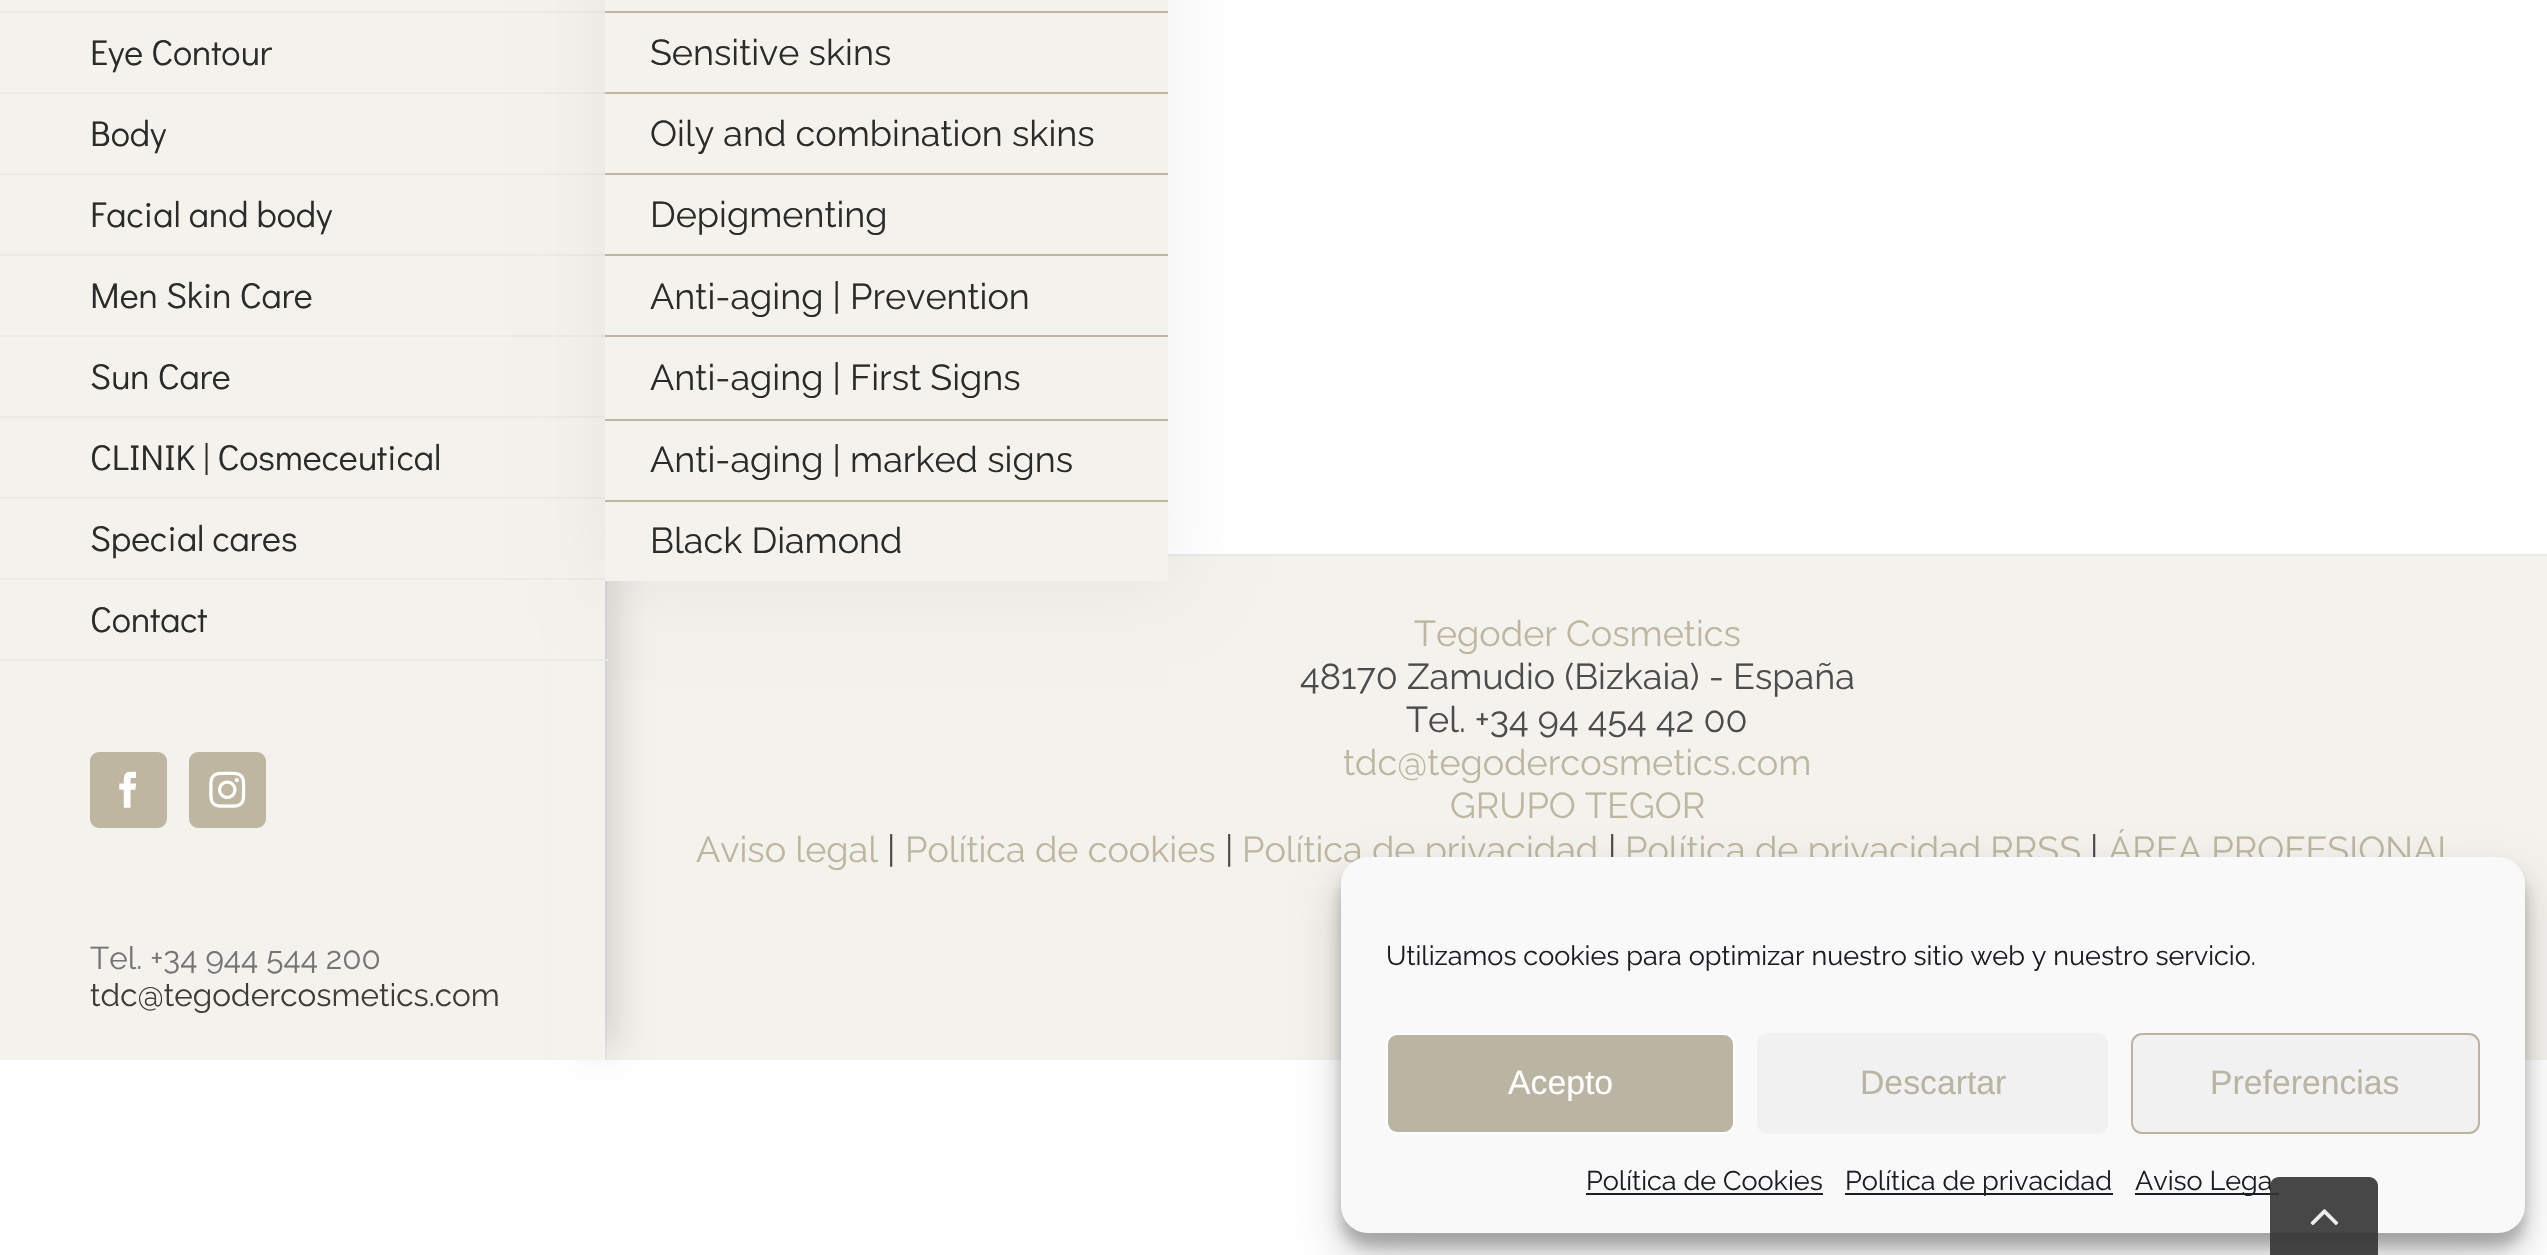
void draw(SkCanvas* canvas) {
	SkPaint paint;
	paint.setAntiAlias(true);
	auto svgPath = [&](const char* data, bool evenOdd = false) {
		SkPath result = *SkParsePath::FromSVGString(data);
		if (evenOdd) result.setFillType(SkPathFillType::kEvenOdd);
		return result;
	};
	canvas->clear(0xffffffff);
	paint.setColor(0xfff4f2ed);
	canvas->drawRect(SkRect::MakeXYWH(0, 0, 608, 1060), paint);
	paint.setColor(0xffeaeaea);
	canvas->drawRect(SkRect::MakeXYWH(605, 581, 2, 479), paint);
	paint.setColor(0xfff4f2ed);
	canvas->drawRect(SkRect::MakeXYWH(608, 556, 1939, 504), paint);
	canvas->save();
	canvas->clipPath(svgPath("M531 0H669V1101H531ZM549-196H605V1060H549Z", true), true);
	paint.setColor(0x24000000);
	paint.setMaskFilter(SkMaskFilter::MakeBlur(kNormal_SkBlurStyle, 17));
	canvas->drawRect(SkRect::MakeXYWH(583, -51, 34, 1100), paint);
	paint.setMaskFilter(nullptr);
	canvas->restore();
	paint.setColor(0xffeaeaea);
	canvas->drawRect(SkRect::MakeXYWH(0, 92, 608, 2), paint);
	SkFont f1(fontMgr->matchFamilyStyle("Didact Gothic", SkFontStyle::Normal()), 36);
	f1.setSubpixel(true);
	paint.setColor(0xff2b2b2a);
	canvas->drawString("Eye Contour", 90, 65, f1, paint);
	paint.setColor(0xffeaeaea);
	canvas->drawRect(SkRect::MakeXYWH(0, 11, 608, 2), paint);
	canvas->drawRect(SkRect::MakeXYWH(0, 173, 608, 2), paint);
	canvas->drawRect(SkRect::MakeXYWH(0, 254, 608, 2), paint);
	canvas->drawRect(SkRect::MakeXYWH(0, 335, 608, 2), paint);
	canvas->drawRect(SkRect::MakeXYWH(0, 416, 608, 2), paint);
	canvas->drawRect(SkRect::MakeXYWH(0, 497, 608, 2), paint);
	canvas->drawRect(SkRect::MakeXYWH(0, 578, 608, 2), paint);
	canvas->drawRect(SkRect::MakeXYWH(0, 659, 608, 2), paint);
	canvas->drawRect(SkRect::MakeXYWH(1168, 554, 1379, 2), paint);
	paint.setColor(0x0f000000);
	paint.setMaskFilter(SkMaskFilter::MakeBlur(kNormal_SkBlurStyle, 34));
	canvas->drawRect(SkRect::MakeXYWH(608, -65, 562, 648), paint);
	paint.setMaskFilter(nullptr);
	paint.setColor(0xfff4f2ed);
	canvas->drawRect(SkRect::MakeXYWH(605, 0, 563, 581), paint);
	paint.setColor(0xffbfb6a1);
	canvas->drawRect(SkRect::MakeXYWH(605, 11, 563, 2), paint);
	canvas->drawRect(SkRect::MakeXYWH(605, 92, 563, 2), paint);
	SkFont f2(fontMgr->matchFamilyStyle("Raleway", SkFontStyle::Normal()), 36);
	f2.setSubpixel(true);
	paint.setColor(0xff2b2b2a);
	canvas->drawString("Sensitive skins", 650, 65, f2, paint);
	paint.setColor(0xffbfb6a1);
	canvas->drawRect(SkRect::MakeXYWH(605, 173, 563, 2), paint);
	paint.setColor(0xff2b2b2a);
	canvas->drawString("Oily and combination skins", 650, 146, f2, paint);
	paint.setColor(0xffbfb6a1);
	canvas->drawRect(SkRect::MakeXYWH(605, 254, 563, 2), paint);
	paint.setColor(0xff2b2b2a);
	canvas->drawString("Depigmenting", 650, 227, f2, paint);
	paint.setColor(0xffbfb6a1);
	canvas->drawRect(SkRect::MakeXYWH(605, 335, 563, 2), paint);
	paint.setColor(0xff2b2b2a);
	canvas->drawString("Anti-aging | Prevention", 650, 309, f2, paint);
	paint.setColor(0xffbfb6a1);
	canvas->drawRect(SkRect::MakeXYWH(605, 419, 563, 2), paint);
	paint.setColor(0xff2b2b2a);
	canvas->drawString("Anti-aging | First Signs", 650, 390, f2, paint);
	paint.setColor(0xffbfb6a1);
	canvas->drawRect(SkRect::MakeXYWH(605, 500, 563, 2), paint);
	paint.setColor(0xff2b2b2a);
	canvas->drawString("Anti-aging | marked signs", 650, 472, f2, paint);
	canvas->drawString("Black Diamond", 650, 553, f2, paint);
	canvas->drawString("Body", 90, 146, f1, paint);
	canvas->drawString("Facial and body", 90, 227, f1, paint);
	canvas->drawString("Men Skin Care", 90, 308, f1, paint);
	canvas->drawString("Sun Care", 90, 389, f1, paint);
	canvas->drawString("CLINIK | Cosmeceutical", 90, 470, f1, paint);
	canvas->drawString("Special cares", 90, 551, f1, paint);
	canvas->drawString("Contact", 90, 632, f1, paint);
	paint.setColor(0xffbfb6a1);
	canvas->drawRoundRect(SkRect::MakeXYWH(91, 753, 75, 74), 8, 8, paint);
	paint.setStroke(true);
	paint.setStrokeWidth(2);
	canvas->drawRoundRect(SkRect::MakeXYWH(91, 753, 75, 74), 8, 8, paint);
	canvas->drawImageRect(SkImages::DeferredFromEncodedData(SkData::MakeFromFileName("img1.png")), SkRect::MakeXYWH(119, 771, 18, 37), SkSamplingOptions());
	paint.setStroke(false);
	canvas->drawRoundRect(SkRect::MakeXYWH(190, 753, 75, 74), 8, 8, paint);
	paint.setStroke(true);
	canvas->drawRoundRect(SkRect::MakeXYWH(190, 753, 75, 74), 8, 8, paint);
	canvas->drawImageRect(SkImages::DeferredFromEncodedData(SkData::MakeFromFileName("img2.png")), SkRect::MakeXYWH(209, 771, 37, 37), SkSamplingOptions());
	SkFont f3(fontMgr->matchFamilyStyle("Raleway", SkFontStyle::Normal()), 31.5);
	f3.setSubpixel(true);
	paint.setStroke(false);
	paint.setColor(0xff747474);
	canvas->drawString("Tel. +34 944 544 200", 90, 969, f3, paint);
	paint.setColor(0xff3e3b38);
	canvas->drawString("tdc@tegodercosmetics.com", 90, 1006, f3, paint);
	paint.setColor(0xffbfb6a1);
	canvas->drawString("Tegoder Cosmetics", 1414, 646, f2, paint);
	paint.setColor(0xff4c4c4c);
	canvas->drawString("48170 Zamudio (Bizkaia) - España", 1300, 689, f2, paint);
	canvas->drawString("Tel. +34 94 454 42 00", 1406, 732, f2, paint);
	paint.setColor(0xffbfb6a1);
	canvas->drawString("tdc@tegodercosmetics.com", 1343, 775, f2, paint);
	canvas->drawString("GRUPO TEGOR", 1450, 818, f2, paint);
	canvas->drawString("Aviso legal", 696, 862, f2, paint);
	paint.setColor(0xff4c4c4c);
	canvas->drawString("|", 887, 862, f2, paint);
	paint.setColor(0xffbfb6a1);
	canvas->drawString("Política de cookies", 905, 862, f2, paint);
	paint.setColor(0xff4c4c4c);
	canvas->drawString("|", 1225, 862, f2, paint);
	paint.setColor(0xffbfb6a1);
	canvas->drawString("Política de privacidad", 1242, 862, f2, paint);
	paint.setColor(0xff4c4c4c);
	canvas->drawString("|", 1608, 862, f2, paint);
	paint.setColor(0xffbfb6a1);
	canvas->drawString("Política de privacidad RRSS", 1625, 862, f2, paint);
	paint.setColor(0xff4c4c4c);
	canvas->drawString("|", 2090, 862, f2, paint);
	paint.setColor(0xffbfb6a1);
	canvas->drawString("ÁREA PROFESIONAL", 2108, 862, f2, paint);
	paint.setColor(0x3b000000);
	paint.setMaskFilter(SkMaskFilter::MakeBlur(kNormal_SkBlurStyle, 7));
	canvas->drawRoundRect(SkRect::MakeXYWH(1341, 871, 1184, 376), 27, 27, paint);
	paint.setMaskFilter(nullptr);
	paint.setColor(0x30000000);
	paint.setMaskFilter(SkMaskFilter::MakeBlur(kNormal_SkBlurStyle, 22.5));
	canvas->drawRoundRect(SkRect::MakeXYWH(1341, 880, 1184, 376), 27, 27, paint);
	paint.setMaskFilter(nullptr);
	paint.setColor(0xfff9f9f9);
	canvas->drawRoundRect(SkRect::MakeXYWH(1341, 857, 1184, 376), 27, 27, paint);
	SkFont f4(fontMgr->matchFamilyStyle("Raleway", SkFontStyle::Normal()), 27);
	f4.setSubpixel(true);
	paint.setColor(0xff191e23);
	canvas->drawString("Utilizamos cookies para optimizar nuestro sitio web y nuestro servicio.", 1386, 965, f4, paint);
	paint.setColor(0xffb9b5a2);
	canvas->drawRoundRect(SkRect::MakeXYWH(1387, 1034, 347, 99), 10, 10, paint);
	paint.setStroke(true);
	paint.setColor(0xffffffff);
	canvas->drawRoundRect(SkRect::MakeXYWH(1387, 1034, 347, 99), 10, 10, paint);
	SkFont f5(fontMgr->matchFamilyStyle("Liberation Sans", SkFontStyle::Normal()), 33.75);
	f5.setSubpixel(true);
	paint.setStroke(false);
	canvas->drawString("Acepto", 1508, 1094, f5, paint);
	paint.setColor(0xfff1f1f1);
	canvas->drawRoundRect(SkRect::MakeXYWH(1757, 1033, 351, 101), 11, 11, paint);
	paint.setColor(0xffb9b5a2);
	canvas->drawString("Descartar", 1860, 1094, f5, paint);
	paint.setColor(0xfff1f1f1);
	canvas->drawRoundRect(SkRect::MakeXYWH(2132, 1034, 347, 99), 10, 10, paint);
	paint.setStroke(true);
	paint.setColor(0xffb9b5a2);
	canvas->drawRoundRect(SkRect::MakeXYWH(2132, 1034, 347, 99), 10, 10, paint);
	paint.setStroke(false);
	canvas->drawString("Preferencias", 2210, 1094, f5, paint);
	paint.setColor(0xff191e23);
	canvas->drawString("Política de Cookies", 1586, 1190, f4, paint);
	canvas->drawRect(SkRect::MakeXYWH(1586, 1193, 237, 2), paint);
	canvas->drawRect(SkRect::MakeXYWH(1845, 1193, 268, 2), paint);
	canvas->drawString("Política de privacidad", 1845, 1190, f4, paint);
	canvas->drawRect(SkRect::MakeXYWH(2135, 1193, 144, 2), paint);
	canvas->drawString("Aviso Lega", 2135, 1190, f4, paint);
	paint.setColor(0xe6333333);
	canvas->drawPath(svgPath("M2279 1177H2369C2374 1177 2378 1181 2378 1186V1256H2270V1186C2270 1181 2274 1177 2279 1177Z"), paint);
	canvas->drawImageRect(SkImages::DeferredFromEncodedData(SkData::MakeFromFileName("img3.png")), SkRect::MakeXYWH(2310, 1209, 29, 17), SkSamplingOptions());
}
